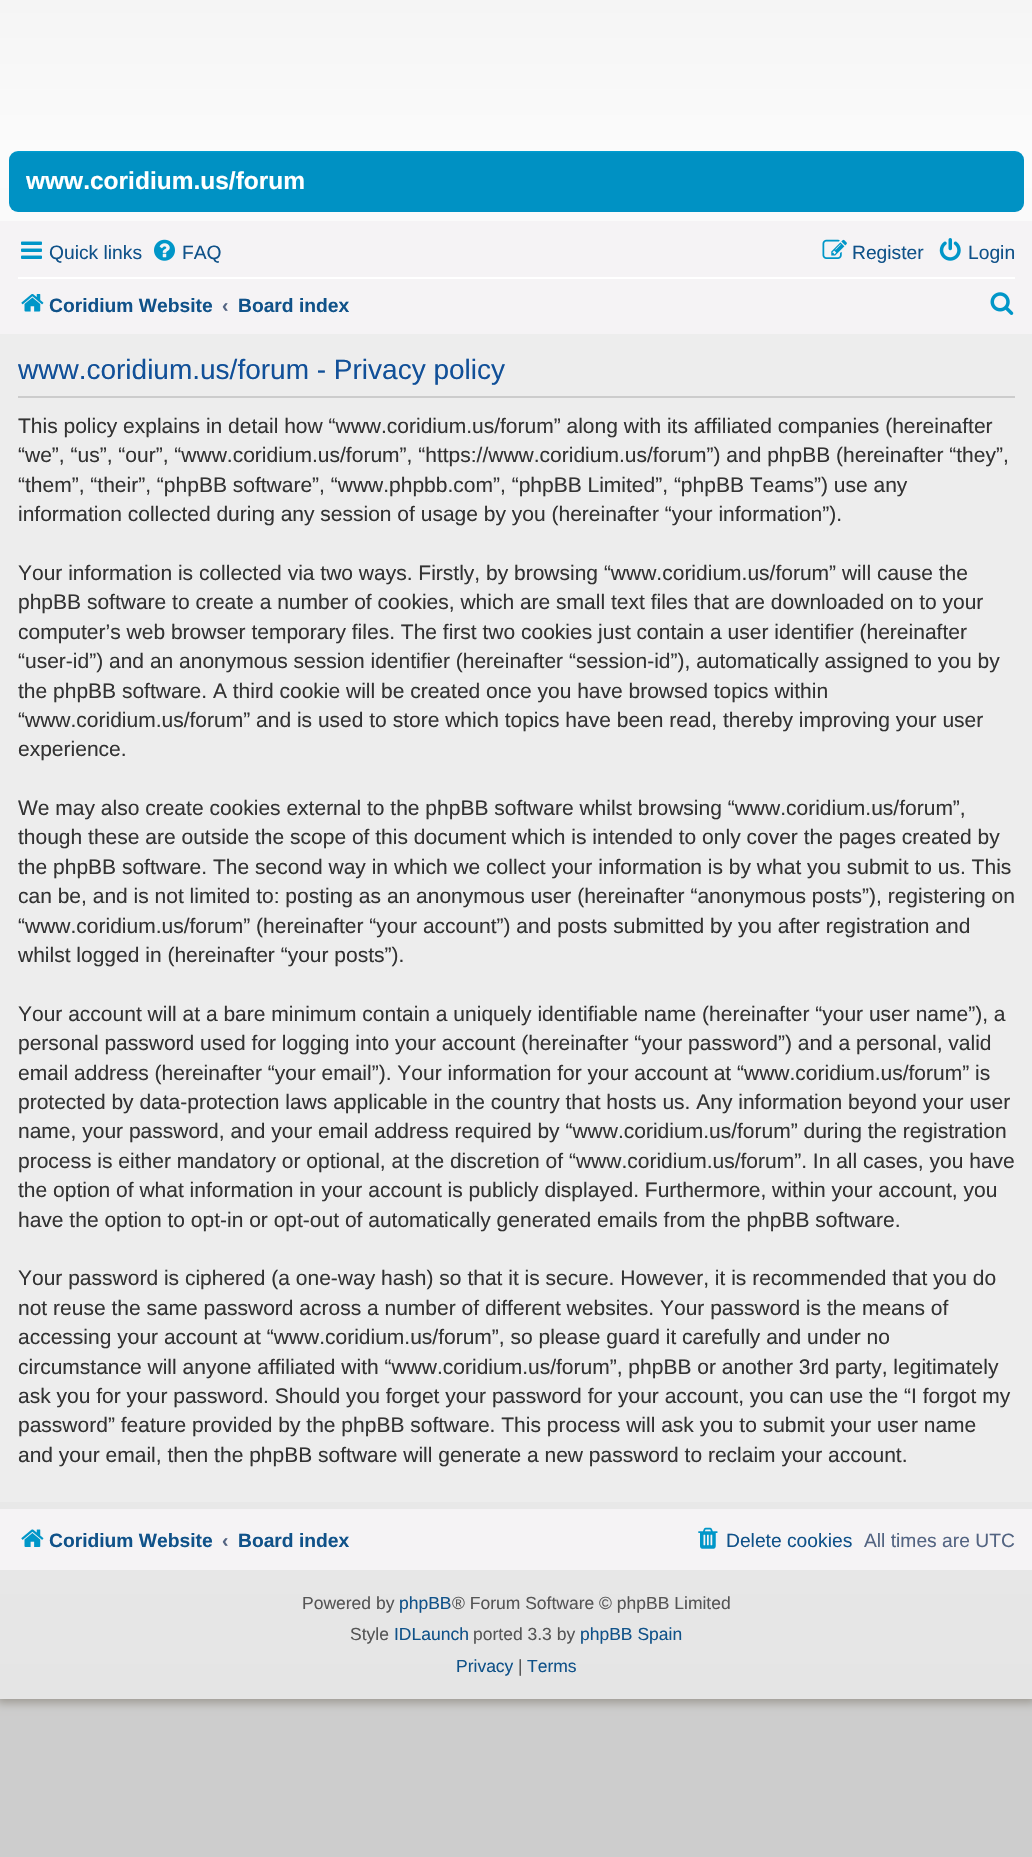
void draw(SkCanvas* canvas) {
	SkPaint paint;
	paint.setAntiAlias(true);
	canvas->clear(0xffcdcdcd);
	paint.setColor(0xff9d9a93);
	paint.setMaskFilter(SkMaskFilter::MakeBlur(kNormal_SkBlurStyle, 4.5));
	canvas->drawRect(SkRect::MakeXYWH(-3, -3, 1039, 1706), paint);
	paint.setMaskFilter(nullptr);
	{
		const SkColor colors[] = {0xffd0d0d0, 0xfff5f5f5, 0xfffbfbfb, 0xffe5e5e5};
		const float stops[] = {0, 0, 0.09, 1};
		const SkPoint ends[] = {{516, 0}, {516, 1699}};
		paint.setShader(SkGradientShader::MakeLinear(ends, colors, stops, 4, SkTileMode::kClamp));
		paint.setAlpha(255);
	}
	canvas->drawRect(SkRect::MakeXYWH(0, 0, 1032, 1699), paint);
	{
		const SkColor colors[] = {0xff01a6dc, 0xff0091c3, 0xff0094c6, 0xff01a6dc};
		const float stops[] = {0, 0.02, 1, 1};
		const SkPoint ends[] = {{516, 150}, {516, 311}};
		paint.setShader(SkGradientShader::MakeLinear(ends, colors, stops, 4, SkTileMode::kClamp));
		paint.setAlpha(255);
	}
	canvas->drawRoundRect(SkRect::MakeXYWH(9, 151, 1015, 61), 9, 9, paint);
	SkFont f1(fontMgr->matchFamilyStyle("Liberation Sans", SkFontStyle::Bold()), 24.5);
	f1.setSubpixel(true);
	paint.setShader(nullptr);
	paint.setColor(0xffffffff);
	canvas->drawString("www.coridium.us/forum", 26, 189, f1, paint);
	paint.setColor(0xfff5f3f5);
	canvas->drawRect(SkRect::MakeXYWH(0, 221, 1032, 113), paint);
	canvas->drawImageRect(SkImages::DeferredFromEncodedData(SkData::MakeFromFileName("img1.png")), SkRect::MakeXYWH(21, 241, 21, 18), SkSamplingOptions());
	SkFont f2(fontMgr->matchFamilyStyle("Liberation Sans", SkFontStyle::Normal()), 19.25);
	f2.setSubpixel(true);
	paint.setColor(0xff105289);
	canvas->drawString("Quick links", 49, 259, f2, paint);
	canvas->drawImageRect(SkImages::DeferredFromEncodedData(SkData::MakeFromFileName("img2.png")), SkRect::MakeXYWH(154, 239, 21, 22), SkSamplingOptions());
	canvas->drawString("FAQ", 182, 259, f2, paint);
	canvas->drawImageRect(SkImages::DeferredFromEncodedData(SkData::MakeFromFileName("img3.png")), SkRect::MakeXYWH(822, 239, 25, 20), SkSamplingOptions());
	canvas->drawString("Register", 852, 259, f2, paint);
	canvas->drawImageRect(SkImages::DeferredFromEncodedData(SkData::MakeFromFileName("img4.png")), SkRect::MakeXYWH(939, 238, 22, 23), SkSamplingOptions());
	canvas->drawString("Login", 968, 259, f2, paint);
	paint.setColor(0xffffffff);
	canvas->drawRect(SkRect::MakeXYWH(18, 277, 997, 2), paint);
	canvas->drawImageRect(SkImages::DeferredFromEncodedData(SkData::MakeFromFileName("img5.png")), SkRect::MakeXYWH(21, 294, 23, 18), SkSamplingOptions());
	SkFont f3(fontMgr->matchFamilyStyle("Liberation Sans", SkFontStyle::Bold()), 19.25);
	f3.setSubpixel(true);
	paint.setColor(0xff105289);
	canvas->drawString("Coridium Website", 49, 312, f3, paint);
	paint.setColor(0xff536482);
	canvas->drawString("‹", 222, 312, f3, paint);
	paint.setColor(0xff105289);
	canvas->drawString("Board index", 238, 312, f3, paint);
	canvas->drawImageRect(SkImages::DeferredFromEncodedData(SkData::MakeFromFileName("img6.png")), SkRect::MakeXYWH(990, 292, 24, 23), SkSamplingOptions());
	paint.setColor(0xffededed);
	canvas->drawRect(SkRect::MakeXYWH(0, 334, 1032, 1168), paint);
	paint.setColor(0xffcccccc);
	canvas->drawRect(SkRect::MakeXYWH(18, 396, 997, 2), paint);
	SkFont f4(fontMgr->matchFamilyStyle("Liberation Sans", SkFontStyle::Normal()), 28);
	f4.setSubpixel(true);
	paint.setColor(0xff115098);
	canvas->drawString("www.coridium.us/forum - Privacy policy", 18, 379, f4, paint);
	SkFont f5(fontMgr->matchFamilyStyle("Liberation Sans", SkFontStyle::Normal()), 21);
	f5.setSubpixel(true);
	paint.setColor(0xff333333);
	canvas->drawString("This policy explains in detail how “www.coridium.us/forum” along with its affiliated companies (hereinafter", 18, 433, f5, paint);
	canvas->drawString("“we”, “us”, “our”, “www.coridium.us/forum”, “https://www.coridium.us/forum”) and phpBB (hereinafter “they”,", 18, 462, f5, paint);
	canvas->drawString("“them”, “their”, “phpBB software”, “www.phpbb.com”, “phpBB Limited”, “phpBB Teams”) use any", 18, 492, f5, paint);
	canvas->drawString("information collected during any session of usage by you (hereinafter “your information”).", 18, 521, f5, paint);
	canvas->drawString("Your information is collected via two ways. Firstly, by browsing “www.coridium.us/forum” will cause the", 18, 580, f5, paint);
	canvas->drawString("phpBB software to create a number of cookies, which are small text files that are downloaded on to your", 18, 609, f5, paint);
	canvas->drawString("computer’s web browser temporary files. The first two cookies just contain a user identifier (hereinafter", 18, 639, f5, paint);
	canvas->drawString("“user-id”) and an anonymous session identifier (hereinafter “session-id”), automatically assigned to you by", 18, 668, f5, paint);
	canvas->drawString("the phpBB software. A third cookie will be created once you have browsed topics within", 18, 698, f5, paint);
	canvas->drawString("“www.coridium.us/forum” and is used to store which topics have been read, thereby improving your user", 18, 727, f5, paint);
	canvas->drawString("experience.", 18, 756, f5, paint);
	canvas->drawString("We may also create cookies external to the phpBB software whilst browsing “www.coridium.us/forum”,", 18, 815, f5, paint);
	canvas->drawString("though these are outside the scope of this document which is intended to only cover the pages created by", 18, 844, f5, paint);
	canvas->drawString("the phpBB software. The second way in which we collect your information is by what you submit to us. This", 18, 874, f5, paint);
	canvas->drawString("can be, and is not limited to: posting as an anonymous user (hereinafter “anonymous posts”), registering on", 18, 903, f5, paint);
	canvas->drawString("“www.coridium.us/forum” (hereinafter “your account”) and posts submitted by you after registration and", 18, 933, f5, paint);
	canvas->drawString("whilst logged in (hereinafter “your posts”).", 18, 962, f5, paint);
	canvas->drawString("Your account will at a bare minimum contain a uniquely identifiable name (hereinafter “your user name”), a", 18, 1021, f5, paint);
	canvas->drawString("personal password used for logging into your account (hereinafter “your password”) and a personal, valid", 18, 1050, f5, paint);
	canvas->drawString("email address (hereinafter “your email”). Your information for your account at “www.coridium.us/forum” is", 18, 1080, f5, paint);
	canvas->drawString("protected by data-protection laws applicable in the country that hosts us. Any information beyond your user", 18, 1109, f5, paint);
	canvas->drawString("name, your password, and your email address required by “www.coridium.us/forum” during the registration", 18, 1138, f5, paint);
	canvas->drawString("process is either mandatory or optional, at the discretion of “www.coridium.us/forum”. In all cases, you have", 18, 1168, f5, paint);
	canvas->drawString("the option of what information in your account is publicly displayed. Furthermore, within your account, you", 18, 1197, f5, paint);
	canvas->drawString("have the option to opt-in or opt-out of automatically generated emails from the phpBB software.", 18, 1227, f5, paint);
	canvas->drawString("Your password is ciphered (a one-way hash) so that it is secure. However, it is recommended that you do", 18, 1285, f5, paint);
	canvas->drawString("not reuse the same password across a number of different websites. Your password is the means of", 18, 1315, f5, paint);
	canvas->drawString("accessing your account at “www.coridium.us/forum”, so please guard it carefully and under no", 18, 1344, f5, paint);
	canvas->drawString("circumstance will anyone affiliated with “www.coridium.us/forum”, phpBB or another 3rd party, legitimately", 18, 1374, f5, paint);
	canvas->drawString("ask you for your password. Should you forget your password for your account, you can use the “I forgot my", 18, 1403, f5, paint);
	canvas->drawString("password” feature provided by the phpBB software. This process will ask you to submit your user name", 18, 1432, f5, paint);
	canvas->drawString("and your email, then the phpBB software will generate a new password to reclaim your account.", 18, 1462, f5, paint);
	paint.setColor(0xfff5f3f5);
	canvas->drawRect(SkRect::MakeXYWH(0, 1509, 1032, 61), paint);
	canvas->drawImageRect(SkImages::DeferredFromEncodedData(SkData::MakeFromFileName("img7.png")), SkRect::MakeXYWH(21, 1529, 23, 18), SkSamplingOptions());
	paint.setColor(0xff105289);
	canvas->drawString("Coridium Website", 49, 1547, f3, paint);
	paint.setColor(0xff536482);
	canvas->drawString("‹", 222, 1547, f3, paint);
	paint.setColor(0xff105289);
	canvas->drawString("Board index", 238, 1547, f3, paint);
	canvas->drawImageRect(SkImages::DeferredFromEncodedData(SkData::MakeFromFileName("img8.png")), SkRect::MakeXYWH(698, 1527, 20, 22), SkSamplingOptions());
	canvas->drawString("Delete cookies", 726, 1547, f2, paint);
	paint.setColor(0xff536482);
	canvas->drawString("All times are UTC", 864, 1547, f2, paint);
	SkFont f6(fontMgr->matchFamilyStyle("Liberation Sans", SkFontStyle::Normal()), 17.5);
	f6.setSubpixel(true);
	paint.setColor(0xff555555);
	canvas->drawString("Powered by", 302, 1609, f6, paint);
	paint.setColor(0xff105289);
	canvas->drawString("phpBB", 399, 1609, f6, paint);
	paint.setColor(0xff555555);
	canvas->drawString("® Forum Software © phpBB Limited", 452, 1609, f6, paint);
	canvas->drawString("Style", 350, 1640, f6, paint);
	paint.setColor(0xff105289);
	canvas->drawString("IDLaunch", 394, 1640, f6, paint);
	paint.setColor(0xff555555);
	canvas->drawString("ported 3.3 by", 473, 1640, f6, paint);
	paint.setColor(0xff105289);
	canvas->drawString("phpBB Spain", 580, 1640, f6, paint);
	canvas->drawString("Privacy", 456, 1672, f6, paint);
	paint.setColor(0xff555555);
	canvas->drawString("|", 518, 1672, f6, paint);
	paint.setColor(0xff105289);
	canvas->drawString("Terms", 527, 1672, f6, paint);
}
